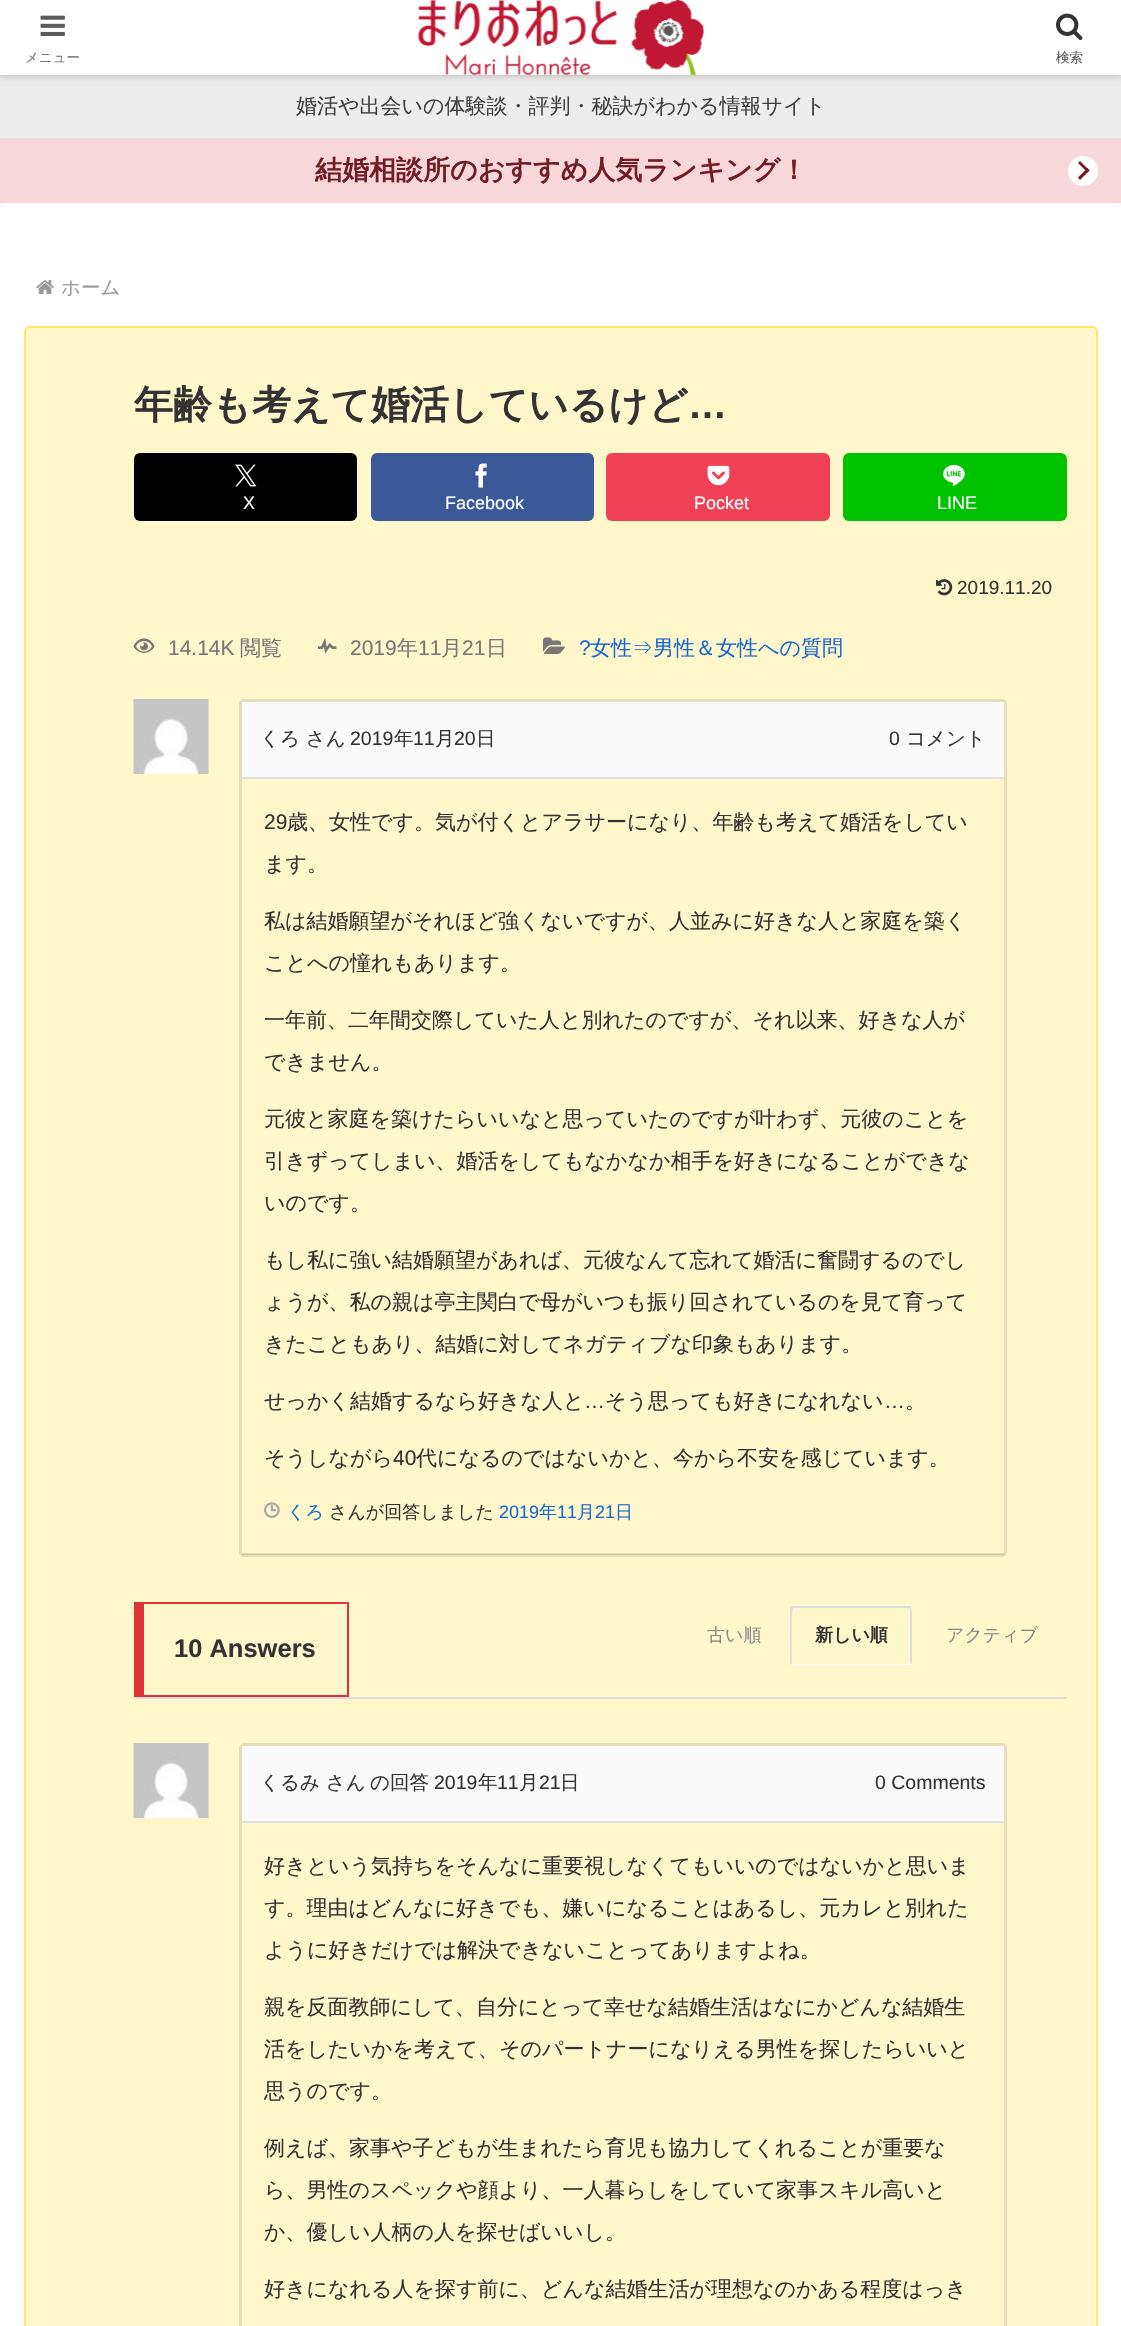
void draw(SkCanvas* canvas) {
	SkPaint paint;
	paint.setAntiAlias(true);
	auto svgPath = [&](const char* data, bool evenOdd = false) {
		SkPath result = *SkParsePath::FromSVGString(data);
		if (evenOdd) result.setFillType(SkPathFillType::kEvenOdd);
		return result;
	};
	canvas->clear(0xfff4f5f7);
	paint.setColor(0xffededed);
	canvas->drawRect(SkRect::MakeXYWH(0, 75, 1121, 63), paint);
	paint.setColor(0xffa9a9a9);
	paint.setMaskFilter(SkMaskFilter::MakeBlur(kNormal_SkBlurStyle, 4));
	canvas->drawRect(SkRect::MakeXYWH(0, 0, 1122, 75), paint);
	paint.setMaskFilter(nullptr);
	paint.setColor(0xffffffff);
	canvas->drawRect(SkRect::MakeXYWH(0, 0, 1121, 75), paint);
	canvas->drawImageRect(SkImages::DeferredFromEncodedData(SkData::MakeFromFileName("img1.png")), SkRect::MakeXYWH(40, 15, 25, 21), SkSamplingOptions());
	SkFont f1(fontMgr->matchFamilyStyle("WenQuanYi Zen Hei", SkFontStyle(500, SkFontStyle::kNormal_Width, SkFontStyle::kUpright_Slant)), 13.5);
	f1.setSubpixel(true);
	paint.setColor(0xff777777);
	canvas->drawString("メニュー", 25, 62, f1, paint);
	canvas->drawImageRect(SkImages::DeferredFromEncodedData(SkData::MakeFromFileName("img2.png")), SkRect::MakeXYWH(418, 0, 286, 75), SkSamplingOptions());
	canvas->drawImageRect(SkImages::DeferredFromEncodedData(SkData::MakeFromFileName("img3.png")), SkRect::MakeXYWH(1056, 13, 27, 28), SkSamplingOptions());
	paint.setColor(0xff5c5c5c);
	canvas->drawString("検索", 1056, 62, f1, paint);
	SkFont f2(fontMgr->matchFamilyStyle("WenQuanYi Zen Hei", SkFontStyle(500, SkFontStyle::kNormal_Width, SkFontStyle::kUpright_Slant)), 21);
	f2.setSubpixel(true);
	paint.setColor(0xff3f3f3f);
	canvas->drawString("婚活や出会いの体験談・評判・秘訣がわかる情報サイト", 296, 113, f2, paint);
	paint.setColor(0xfff8d7da);
	canvas->drawRect(SkRect::MakeXYWH(0, 138, 1121, 65), paint);
	SkFont f3(fontMgr->matchFamilyStyle("WenQuanYi Zen Hei", SkFontStyle::Bold()), 27);
	f3.setSubpixel(true);
	paint.setColor(0xff721c24);
	canvas->drawString("結婚相談所のおすすめ人気ランキング！", 315, 179, f3, paint);
	paint.setColor(0xffffffff);
	canvas->drawCircle(1083, 171, 15, paint);
	paint.setColor(0xff721c24);
	canvas->drawPath(svgPath("M1080 161L1089.5 170.5L1087.5 172.5L1078 163Z"), paint);
	canvas->drawPath(svgPath("M1087.5 168L1089.5 170.5L1080 180L1078 177.5Z"), paint);
	paint.setColor(0xffffffff);
	canvas->drawRoundRect(SkRect::MakeXYWH(0, 203, 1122, 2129), 6, 6, paint);
	canvas->drawImageRect(SkImages::DeferredFromEncodedData(SkData::MakeFromFileName("img4.png")), SkRect::MakeXYWH(36, 280, 18, 14), SkSamplingOptions());
	SkFont f4(fontMgr->matchFamilyStyle("WenQuanYi Zen Hei", SkFontStyle(500, SkFontStyle::kNormal_Width, SkFontStyle::kUpright_Slant)), 19.5);
	f4.setSubpixel(true);
	paint.setColor(0xff999999);
	canvas->drawString("ホーム", 61, 294, f4, paint);
	paint.setColor(0xfffff7cc);
	canvas->drawRoundRect(SkRect::MakeXYWH(25, 327, 1072, 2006), 5, 5, paint);
	paint.setStroke(true);
	paint.setStrokeWidth(2);
	paint.setColor(0xffffe766);
	canvas->drawRoundRect(SkRect::MakeXYWH(25, 327, 1072, 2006), 5, 5, paint);
	SkFont f5(fontMgr->matchFamilyStyle("WenQuanYi Zen Hei", SkFontStyle::Bold()), 39);
	f5.setSubpixel(true);
	paint.setStroke(false);
	paint.setColor(0xff333333);
	canvas->drawString("年齢も考えて婚活しているけど", 134, 418, f5, paint);
	SkFont f6(fontMgr->matchFamilyStyle("Liberation Sans", SkFontStyle::Bold()), 39);
	f6.setSubpixel(true);
	canvas->drawString("…", 688, 418, f6, paint);
	paint.setColor(0xff000000);
	canvas->drawRoundRect(SkRect::MakeXYWH(134, 453, 223, 68), 6, 6, paint);
	canvas->drawImageRect(SkImages::DeferredFromEncodedData(SkData::MakeFromFileName("img5.png")), SkRect::MakeXYWH(235, 464, 22, 23), SkSamplingOptions());
	SkFont f7(fontMgr->matchFamilyStyle("Liberation Sans", SkFontStyle::Normal()), 18);
	f7.setSubpixel(true);
	paint.setColor(0xffffffff);
	canvas->drawString("X", 243, 509, f7, paint);
	paint.setColor(0xff3b5998);
	canvas->drawRoundRect(SkRect::MakeXYWH(371, 453, 223, 68), 6, 6, paint);
	canvas->drawImageRect(SkImages::DeferredFromEncodedData(SkData::MakeFromFileName("img6.png")), SkRect::MakeXYWH(475, 463, 12, 25), SkSamplingOptions());
	paint.setColor(0xffffffff);
	canvas->drawString("Facebook", 445, 509, f7, paint);
	paint.setColor(0xffef4056);
	canvas->drawRoundRect(SkRect::MakeXYWH(606, 453, 224, 68), 6, 6, paint);
	canvas->drawImageRect(SkImages::DeferredFromEncodedData(SkData::MakeFromFileName("img7.png")), SkRect::MakeXYWH(707, 465, 23, 21), SkSamplingOptions());
	paint.setColor(0xffffffff);
	canvas->drawString("Pocket", 694, 509, f7, paint);
	paint.setColor(0xff00c300);
	canvas->drawRoundRect(SkRect::MakeXYWH(843, 453, 224, 68), 6, 6, paint);
	canvas->drawImageRect(SkImages::DeferredFromEncodedData(SkData::MakeFromFileName("img8.png")), SkRect::MakeXYWH(943, 465, 22, 21), SkSamplingOptions());
	paint.setColor(0xffffffff);
	canvas->drawString("LINE", 937, 509, f7, paint);
	canvas->drawImageRect(SkImages::DeferredFromEncodedData(SkData::MakeFromFileName("img9.png")), SkRect::MakeXYWH(936, 579, 17, 17), SkSamplingOptions());
	SkFont f8(fontMgr->matchFamilyStyle("Liberation Sans", SkFontStyle::Normal()), 19);
	f8.setSubpixel(true);
	paint.setColor(0xff333333);
	canvas->drawString("2019.11.20", 957, 594, f8, paint);
	canvas->drawImageRect(SkImages::DeferredFromEncodedData(SkData::MakeFromFileName("img10.png")), SkRect::MakeXYWH(133, 638, 22, 15), SkSamplingOptions());
	SkFont f9(fontMgr->matchFamilyStyle("Liberation Sans", SkFontStyle::Normal()), 21);
	f9.setSubpixel(true);
	paint.setColor(0xff777777);
	canvas->drawString("14.14K", 168, 655, f9, paint);
	canvas->drawString("閲覧", 240, 655, f2, paint);
	canvas->drawImageRect(SkImages::DeferredFromEncodedData(SkData::MakeFromFileName("img11.png")), SkRect::MakeXYWH(318, 638, 19, 16), SkSamplingOptions());
	canvas->drawString("2019", 350, 655, f9, paint);
	canvas->drawString("年", 397, 655, f2, paint);
	canvas->drawString("11", 418, 655, f9, paint);
	canvas->drawString("月", 441, 655, f2, paint);
	canvas->drawString("21", 462, 655, f9, paint);
	canvas->drawString("日", 486, 655, f2, paint);
	canvas->drawImageRect(SkImages::DeferredFromEncodedData(SkData::MakeFromFileName("img12.png")), SkRect::MakeXYWH(543, 637, 22, 17), SkSamplingOptions());
	paint.setColor(0xff1967d2);
	canvas->drawString("?", 579, 655, f9, paint);
	canvas->drawString("女性⇒男性＆女性への質問", 590, 655, f2, paint);
	canvas->drawImageRect(SkImages::DeferredFromEncodedData(SkData::MakeFromFileName("img13.png")), SkRect::MakeXYWH(133, 699, 76, 75), SkSamplingOptions());
	paint.setStroke(true);
	paint.setStrokeWidth(3);
	paint.setColor(0xffe6deb8);
	canvas->drawRoundRect(SkRect::MakeXYWH(240.5, 700.5, 765, 855), 3.5, 3.5, paint);
	paint.setStroke(false);
	paint.setColor(0xfffafafa);
	canvas->drawRect(SkRect::MakeXYWH(242, 702, 762, 75), paint);
	paint.setColor(0xffe1e1e1);
	canvas->drawRect(SkRect::MakeXYWH(242, 777, 762, 2), paint);
	paint.setColor(0xff333333);
	canvas->drawString("くろ さん", 260, 745, f4, paint);
	SkFont f10(fontMgr->matchFamilyStyle("Liberation Sans", SkFontStyle::Normal()), 19.5);
	f10.setSubpixel(true);
	canvas->drawString("2019", 350, 745, f10, paint);
	canvas->drawString("年", 394, 745, f4, paint);
	canvas->drawString("11", 413, 745, f10, paint);
	canvas->drawString("月", 435, 745, f4, paint);
	canvas->drawString("20", 454, 745, f10, paint);
	canvas->drawString("日", 476, 745, f4, paint);
	canvas->drawString("0", 889, 745, f10, paint);
	canvas->drawString("コメント", 906, 745, f4, paint);
	canvas->drawString("29", 264, 829, f9, paint);
	canvas->drawString("歳、女性です。気が付くとアラサーになり、年齢も考えて婚活をしてい", 287, 829, f2, paint);
	canvas->drawString("ます。", 264, 871, f2, paint);
	canvas->drawString("私は結婚願望がそれほど強くないですが、人並みに好きな人と家庭を築く", 264, 928, f2, paint);
	canvas->drawString("ことへの憧れもあります。", 264, 970, f2, paint);
	canvas->drawString("一年前、二年間交際していた人と別れたのですが、それ以来、好きな人が", 264, 1027, f2, paint);
	canvas->drawString("できません。", 264, 1069, f2, paint);
	canvas->drawString("元彼と家庭を築けたらいいなと思っていたのですが叶わず、元彼のことを", 264, 1126, f2, paint);
	canvas->drawString("引きずってしまい、婚活をしてもなかなか相手を好きになることができな", 264, 1168, f2, paint);
	canvas->drawString("いのです。", 264, 1210, f2, paint);
	canvas->drawString("もし私に強い結婚願望があれば、元彼なんて忘れて婚活に奮闘するのでし", 264, 1267, f2, paint);
	canvas->drawString("ょうが、私の親は亭主関白で母がいつも振り回されているのを見て育って", 264, 1309, f2, paint);
	canvas->drawString("きたこともあり、結婚に対してネガティブな印象もあります。", 264, 1351, f2, paint);
	canvas->drawString("せっかく結婚するなら好きな人と", 264, 1408, f2, paint);
	canvas->drawString("…", 584, 1408, f9, paint);
	canvas->drawString("そう思っても好きになれない", 605, 1408, f2, paint);
	canvas->drawString("…", 884, 1408, f9, paint);
	canvas->drawString("。", 905, 1408, f2, paint);
	canvas->drawString("そうしながら", 264, 1465, f2, paint);
	canvas->drawString("40", 393, 1465, f9, paint);
	canvas->drawString("代になるのではないかと、今から不安を感じています。", 416, 1465, f2, paint);
	canvas->drawImageRect(SkImages::DeferredFromEncodedData(SkData::MakeFromFileName("img14.png")), SkRect::MakeXYWH(264, 1502, 16, 16), SkSamplingOptions());
	SkFont f11(fontMgr->matchFamilyStyle("WenQuanYi Zen Hei", SkFontStyle(500, SkFontStyle::kNormal_Width, SkFontStyle::kUpright_Slant)), 18);
	f11.setSubpixel(true);
	paint.setColor(0xff1967d2);
	canvas->drawString("くろ", 287, 1518, f11, paint);
	paint.setColor(0xff333333);
	canvas->drawString("さんが回答しました", 329, 1518, f11, paint);
	paint.setColor(0xff1967d2);
	canvas->drawString("2019", 499, 1518, f7, paint);
	canvas->drawString("年", 539, 1518, f11, paint);
	canvas->drawString("11", 557, 1518, f7, paint);
	canvas->drawString("月", 577, 1518, f11, paint);
	canvas->drawString("21", 595, 1518, f7, paint);
	canvas->drawString("日", 615, 1518, f11, paint);
	paint.setColor(0x1a000000);
	canvas->drawRect(SkRect::MakeXYWH(242, 1553, 762, 2), paint);
	paint.setColor(0xffdddddd);
	canvas->drawRect(SkRect::MakeXYWH(134, 1697, 933, 2), paint);
	paint.setColor(0xff888888);
	canvas->drawString("古い順", 707, 1641, f11, paint);
	paint.setColor(0xffdddddd);
	canvas->drawPath(svgPath("M794 1608L793 1609L791 1607L792 1606H911V1607L910 1609L909 1608Z"), paint);
	canvas->drawPath(svgPath("M912 1665V1610L911 1607L910 1609V1663Z"), paint);
	paint.setColor(0xffffffff);
	canvas->drawPath(svgPath("M912 1665L910 1663V1664H792L790 1665Z"), paint);
	paint.setColor(0xffdddddd);
	canvas->drawPath(svgPath("M790 1665V1608L791 1607L793 1609C791 1610 792 1657 792 1664Z"), paint);
	SkFont f12(fontMgr->matchFamilyStyle("WenQuanYi Zen Hei", SkFontStyle::Bold()), 18);
	f12.setSubpixel(true);
	paint.setColor(0xff333333);
	canvas->drawString("新しい順", 815, 1641, f12, paint);
	paint.setColor(0xff888888);
	canvas->drawString("アクティブ", 946, 1641, f11, paint);
	paint.setColor(0xffdd3333);
	canvas->drawRect(SkRect::MakeXYWH(144, 1602, 204, 2), paint);
	canvas->drawRect(SkRect::MakeXYWH(347, 1602, 2, 95), paint);
	canvas->drawRect(SkRect::MakeXYWH(144, 1695, 204, 2), paint);
	canvas->drawRect(SkRect::MakeXYWH(134, 1602, 10, 95), paint);
	SkFont f13(fontMgr->matchFamilyStyle("Liberation Sans", SkFontStyle::Bold()), 25.5);
	f13.setSubpixel(true);
	paint.setColor(0xff333333);
	canvas->drawString("10 Answers", 174, 1657, f13, paint);
	canvas->drawImageRect(SkImages::DeferredFromEncodedData(SkData::MakeFromFileName("img13.png")), SkRect::MakeXYWH(133, 1743, 76, 75), SkSamplingOptions());
	paint.setStroke(true);
	paint.setColor(0xffe6deb8);
	canvas->drawRoundRect(SkRect::MakeXYWH(240.5, 1744.5, 765, 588), 3.5, 3.5, paint);
	paint.setStroke(false);
	paint.setColor(0xfffafafa);
	canvas->drawRect(SkRect::MakeXYWH(242, 1746, 762, 75), paint);
	paint.setColor(0xffe1e1e1);
	canvas->drawRect(SkRect::MakeXYWH(242, 1821, 762, 2), paint);
	paint.setColor(0xff333333);
	canvas->drawString("くるみ さん", 260, 1789, f4, paint);
	canvas->drawString("の回答", 370, 1789, f4, paint);
	canvas->drawString("2019", 434, 1789, f10, paint);
	canvas->drawString("年", 478, 1789, f4, paint);
	canvas->drawString("11", 497, 1789, f10, paint);
	canvas->drawString("月", 519, 1789, f4, paint);
	canvas->drawString("21", 539, 1789, f10, paint);
	canvas->drawString("日", 560, 1789, f4, paint);
	canvas->drawString("0 Comments", 875, 1789, f10, paint);
	canvas->drawString("好きという気持ちをそんなに重要視しなくてもいいのではないかと思いま", 264, 1873, f2, paint);
	canvas->drawString("す。理由はどんなに好きでも、嫌いになることはあるし、元カレと別れた", 264, 1915, f2, paint);
	canvas->drawString("ように好きだけでは解決できないことってありますよね。", 264, 1957, f2, paint);
	canvas->drawString("親を反面教師にして、自分にとって幸せな結婚生活はなにかどんな結婚生", 264, 2014, f2, paint);
	canvas->drawString("活をしたいかを考えて、そのパートナーになりえる男性を探したらいいと", 264, 2056, f2, paint);
	canvas->drawString("思うのです。", 264, 2098, f2, paint);
	canvas->drawString("例えば、家事や子どもが生まれたら育児も協力してくれることが重要な", 264, 2155, f2, paint);
	canvas->drawString("ら、男性のスペックや顔より、一人暮らしをしていて家事スキル高いと", 264, 2197, f2, paint);
	canvas->drawString("か、優しい人柄の人を探せばいいし。", 264, 2239, f2, paint);
	canvas->drawString("好きになれる人を探す前に、どんな結婚生活が理想なのかある程度はっき", 264, 2296, f2, paint);
}
